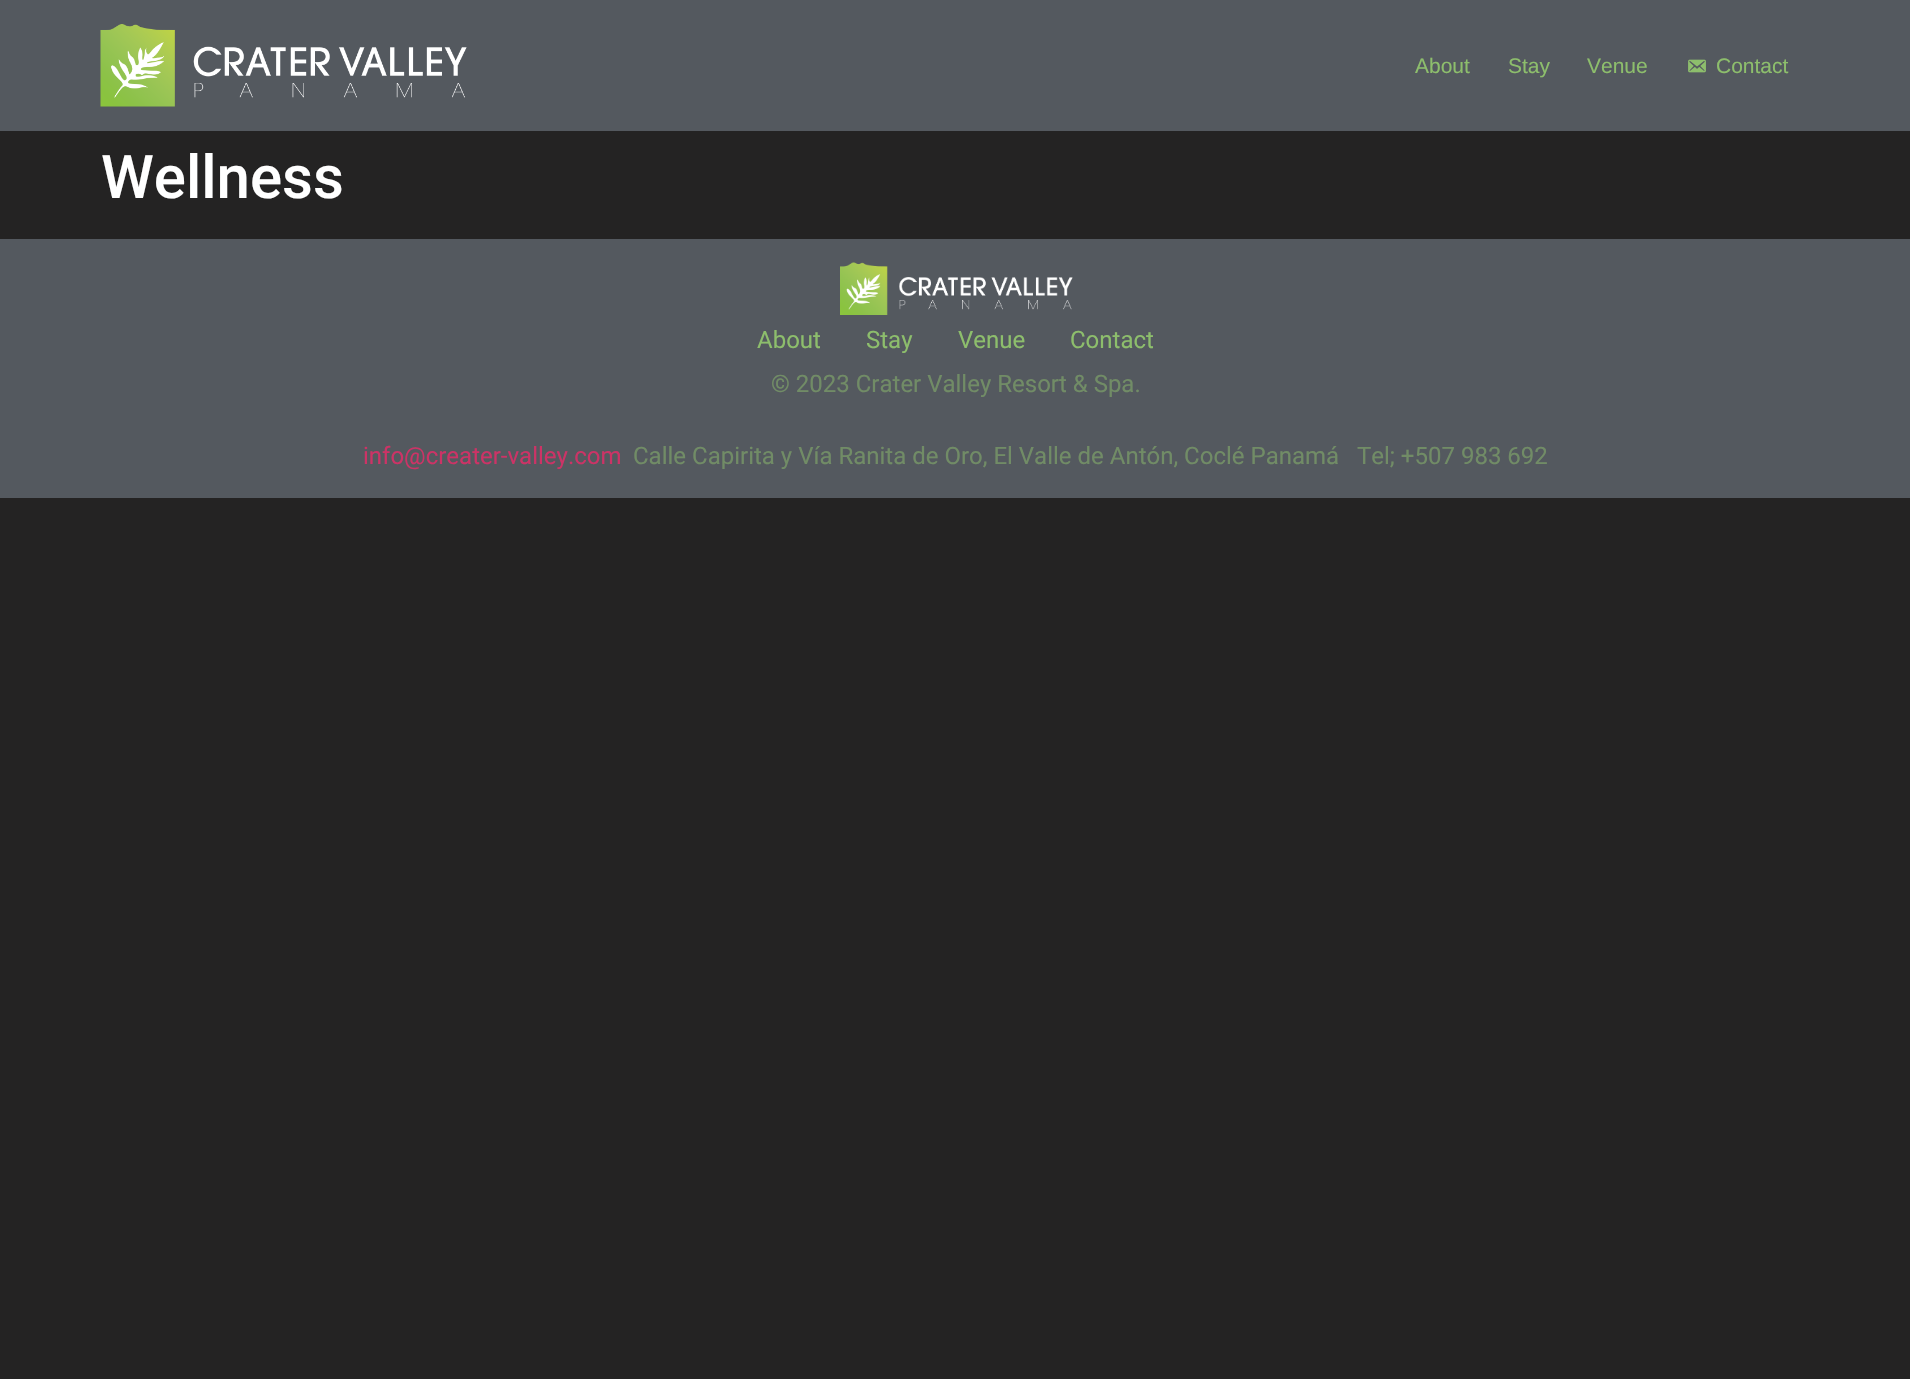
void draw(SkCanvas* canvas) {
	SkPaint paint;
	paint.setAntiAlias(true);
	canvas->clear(0xff242323);
	paint.setColor(0xff54595f);
	canvas->drawRect(SkRect::MakeXYWH(0, 0, 1910, 131), paint);
	canvas->drawImageRect(SkImages::DeferredFromEncodedData(SkData::MakeFromFileName("img1.png")), SkRect::MakeXYWH(100, 24, 367, 83), SkSamplingOptions());
	SkFont f1(fontMgr->matchFamilyStyle("Liberation Sans", SkFontStyle::Normal()), 21);
	f1.setSubpixel(true);
	paint.setColor(0xff8dbe6c);
	canvas->drawString("About", 1415, 73, f1, paint);
	canvas->drawString("Stay", 1508, 73, f1, paint);
	canvas->drawString("Venue", 1587, 73, f1, paint);
	canvas->drawImageRect(SkImages::DeferredFromEncodedData(SkData::MakeFromFileName("img2.png")), SkRect::MakeXYWH(1688, 59, 18, 14), SkSamplingOptions());
	canvas->drawString("Contact", 1716, 73, f1, paint);
	SkFont f2(fontMgr->matchFamilyStyle("Roboto", SkFontStyle(500, SkFontStyle::kNormal_Width, SkFontStyle::kUpright_Slant)), 60);
	f2.setSubpixel(true);
	paint.setColor(0xffffffff);
	canvas->drawString("Wellness", 101, 198, f2, paint);
	paint.setColor(0xff54595f);
	canvas->drawRect(SkRect::MakeXYWH(0, 239, 1910, 259), paint);
	canvas->drawImageRect(SkImages::DeferredFromEncodedData(SkData::MakeFromFileName("img3.png")), SkRect::MakeXYWH(840, 262, 233, 53), SkSamplingOptions());
	SkFont f3(fontMgr->matchFamilyStyle("Roboto", SkFontStyle::Normal()), 24);
	f3.setSubpixel(true);
	paint.setColor(0xff8dbe6c);
	canvas->drawString("About", 757, 348, f3, paint);
	canvas->drawString("Stay", 866, 348, f3, paint);
	canvas->drawString("Venue", 958, 348, f3, paint);
	canvas->drawString("Contact", 1070, 348, f3, paint);
	paint.setColor(0xff718c66);
	canvas->drawString("© 2023 Crater Valley Resort & Spa.", 771, 392, f3, paint);
	paint.setColor(0xffcc3366);
	canvas->drawString("info@creater-valley.com", 363, 464, f3, paint);
	paint.setColor(0xff718c66);
	canvas->drawString("Calle Capirita y Vía Ranita de Oro, El Valle de Antón, Coclé Panamá   Tel; +507 983 692", 633, 464, f3, paint);
}
